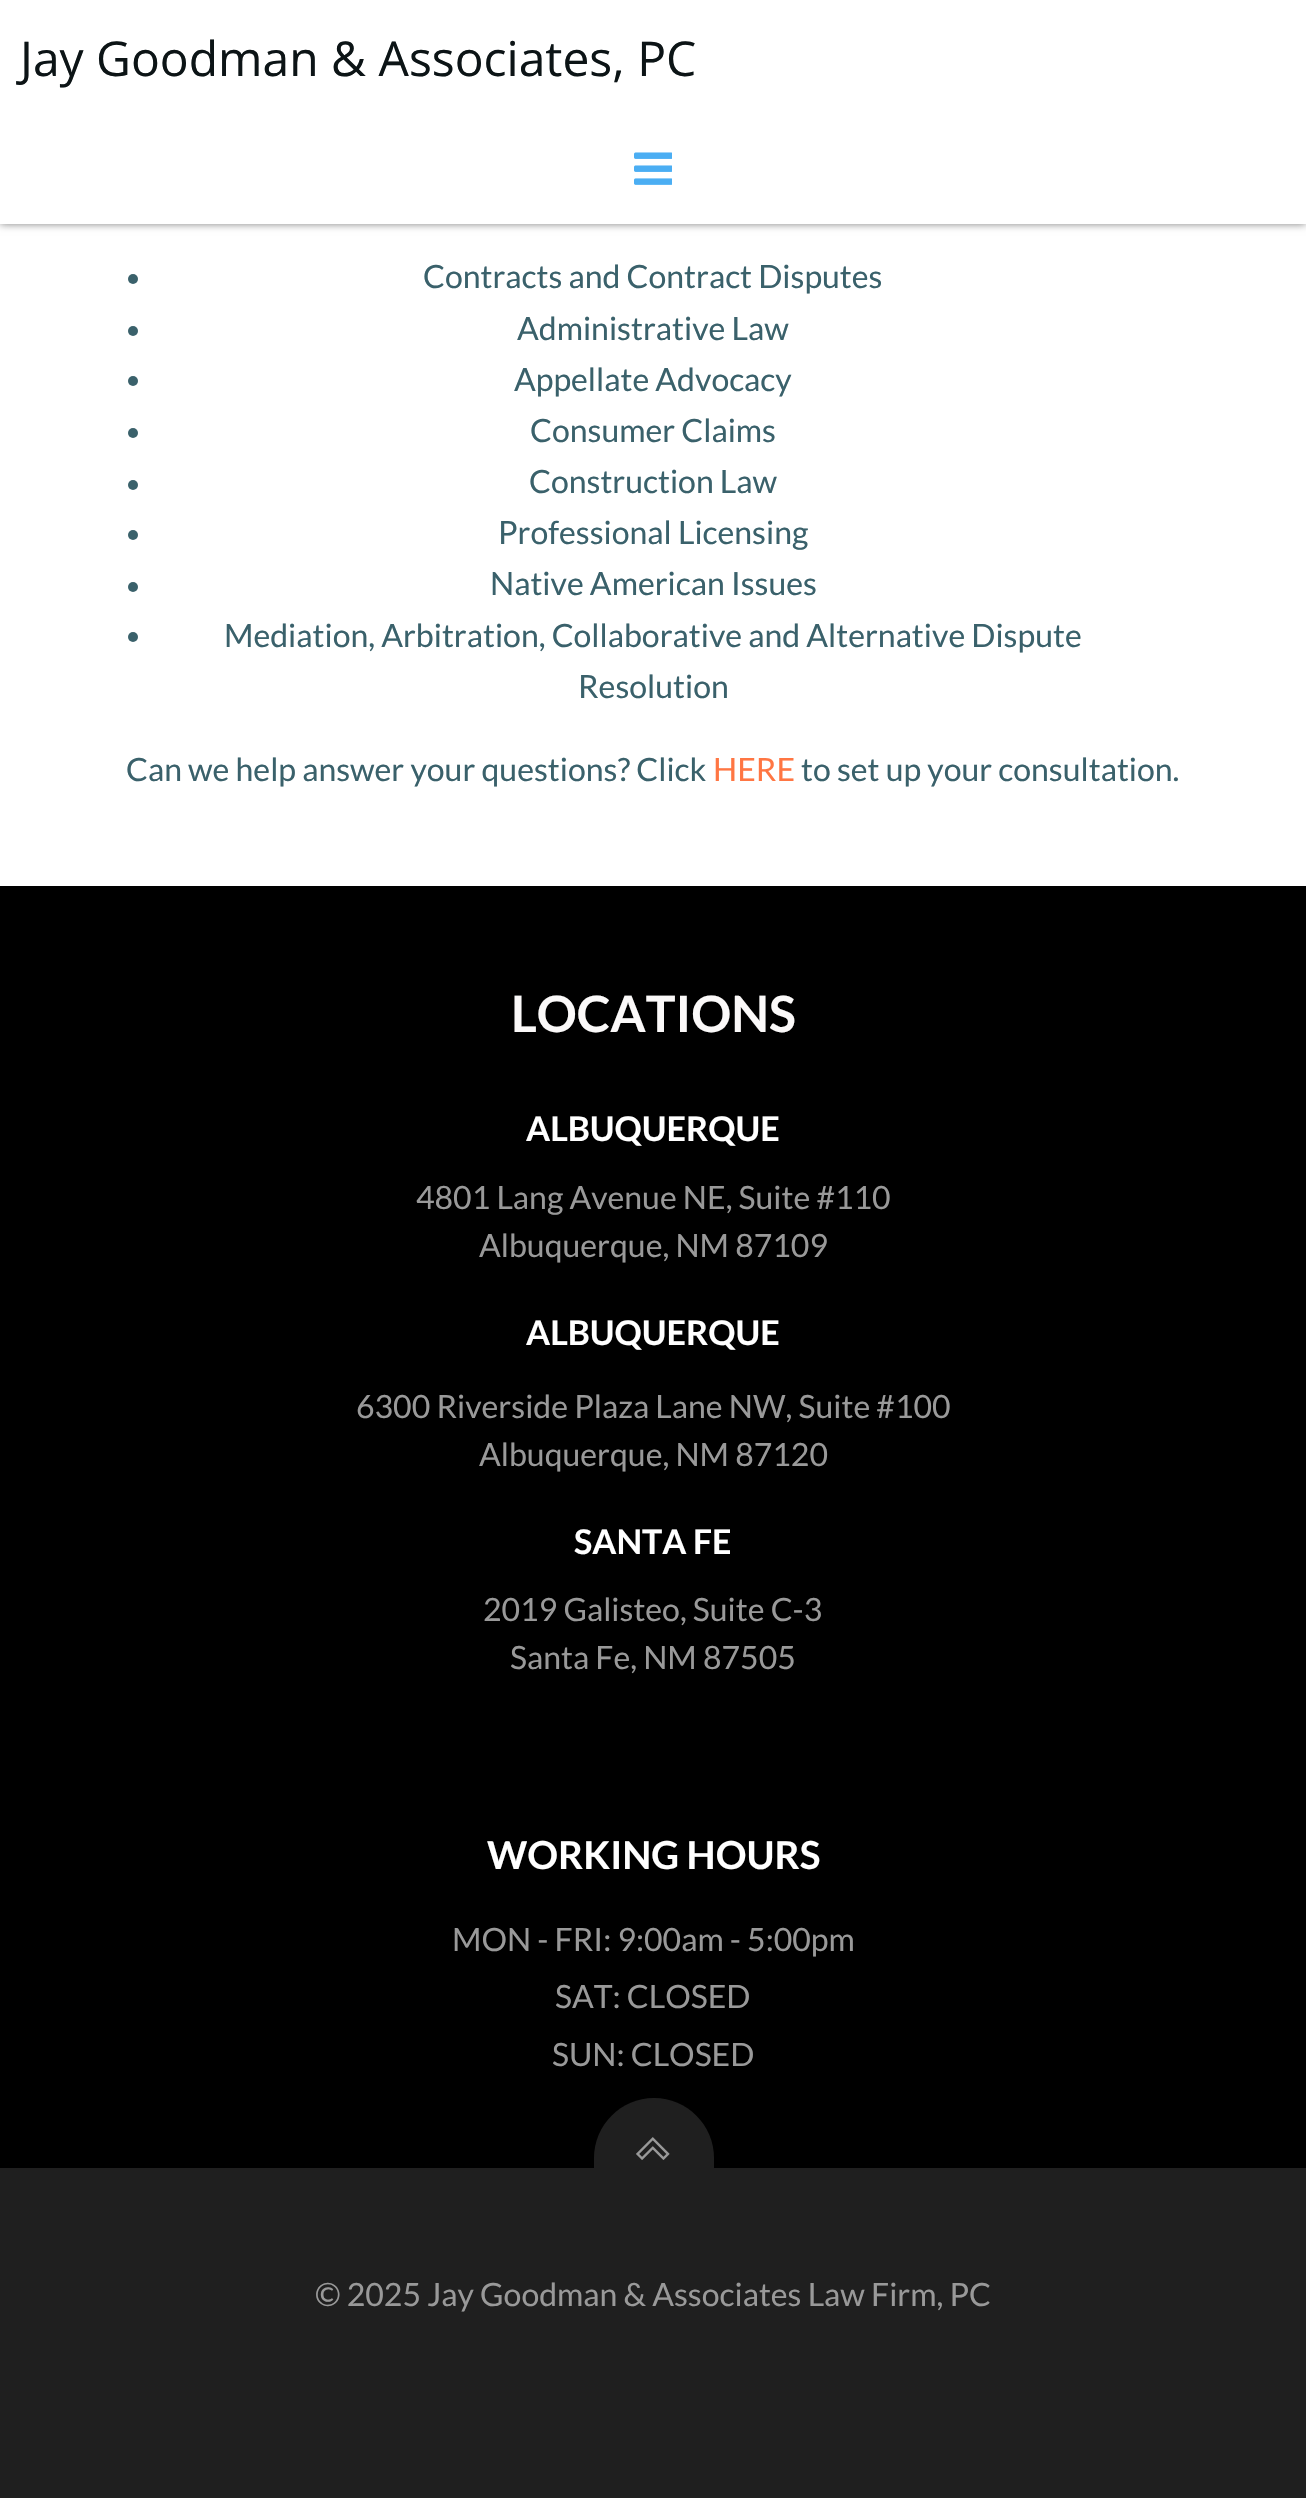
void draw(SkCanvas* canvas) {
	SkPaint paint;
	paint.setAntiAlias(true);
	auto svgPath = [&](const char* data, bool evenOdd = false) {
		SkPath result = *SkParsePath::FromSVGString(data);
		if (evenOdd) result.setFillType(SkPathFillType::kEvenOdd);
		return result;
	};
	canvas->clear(0xffffffff);
	paint.setColor(0x80000000);
	paint.setMaskFilter(SkMaskFilter::MakeBlur(kNormal_SkBlurStyle, 4));
	canvas->drawRect(SkRect::MakeXYWH(0, 0, 1306, 224), paint);
	paint.setMaskFilter(nullptr);
	paint.setColor(0xffffffff);
	canvas->drawRect(SkRect::MakeXYWH(0, 0, 1306, 224), paint);
	SkFont f1(fontMgr->matchFamilyStyle("Open Sans", SkFontStyle::Normal()), 48);
	f1.setSubpixel(true);
	paint.setColor(0xff0c1416);
	canvas->drawString("Jay Goodman & Associates, PC", 20, 76, f1, paint);
	canvas->drawImageRect(SkImages::DeferredFromEncodedData(SkData::MakeFromFileName("img1.png")), SkRect::MakeXYWH(634, 152, 38, 33), SkSamplingOptions());
	paint.setColor(0xff3a616b);
	canvas->drawCircle(133, 279, 5, paint);
	SkFont f2(fontMgr->matchFamilyStyle("Lato", SkFontStyle::Normal()), 32);
	f2.setSubpixel(true);
	canvas->drawString("Contracts and Contract Disputes", 423, 288, f2, paint);
	canvas->drawCircle(133, 331, 5, paint);
	canvas->drawString("Administrative Law", 517, 340, f2, paint);
	canvas->drawCircle(133, 381, 5, paint);
	canvas->drawString("Appellate Advocacy", 514, 391, f2, paint);
	canvas->drawCircle(133, 433, 5, paint);
	canvas->drawString("Consumer Claims", 530, 442, f2, paint);
	canvas->drawCircle(133, 485, 5, paint);
	canvas->drawString("Construction Law", 529, 493, f2, paint);
	canvas->drawCircle(133, 535, 5, paint);
	canvas->drawString("Professional Licensing", 498, 544, f2, paint);
	canvas->drawCircle(133, 587, 5, paint);
	canvas->drawString("Native American Issues", 490, 595, f2, paint);
	canvas->drawCircle(133, 637, 5, paint);
	canvas->drawString("Mediation, Arbitration, Collaborative and Alternative Dispute", 224, 647, f2, paint);
	canvas->drawString("Resolution", 578, 698, f2, paint);
	canvas->drawString("Can we help answer your questions? Click", 126, 781, f2, paint);
	paint.setColor(0xffff7643);
	canvas->drawString("HERE", 713, 781, f2, paint);
	paint.setColor(0xff3a616b);
	canvas->drawString("to set up your consultation.", 801, 781, f2, paint);
	paint.setColor(0xff000000);
	canvas->drawRect(SkRect::MakeXYWH(0, 886, 1306, 1282), paint);
	SkFont f3(fontMgr->matchFamilyStyle("Lato", SkFontStyle::Bold()), 50);
	f3.setSubpixel(true);
	paint.setColor(0xfffbf9f9);
	canvas->drawString("LOCATIONS", 511, 1032, f3, paint);
	SkFont f4(fontMgr->matchFamilyStyle("Lato", SkFontStyle::Bold()), 34);
	f4.setSubpixel(true);
	paint.setColor(0xffffffff);
	canvas->drawString("ALBUQUERQUE", 526, 1141, f4, paint);
	paint.setColor(0xff999999);
	canvas->drawString("4801 Lang Avenue NE, Suite #110", 416, 1209, f2, paint);
	canvas->drawString("Albuquerque, NM 87109", 479, 1257, f2, paint);
	paint.setColor(0xffffffff);
	canvas->drawString("ALBUQUERQUE", 526, 1345, f4, paint);
	paint.setColor(0xff999999);
	canvas->drawString("6300 Riverside Plaza Lane NW, Suite #100", 356, 1418, f2, paint);
	canvas->drawString("Albuquerque, NM 87120", 479, 1466, f2, paint);
	paint.setColor(0xffffffff);
	canvas->drawString("SANTA FE", 574, 1554, f4, paint);
	paint.setColor(0xff999999);
	canvas->drawString("2019 Galisteo, Suite C-3", 483, 1621, f2, paint);
	canvas->drawString("Santa Fe, NM 87505", 510, 1669, f2, paint);
	SkFont f5(fontMgr->matchFamilyStyle("Lato", SkFontStyle::Bold()), 38.5);
	f5.setSubpixel(true);
	paint.setColor(0xffffffff);
	canvas->drawString("WORKING HOURS", 487, 1869, f5, paint);
	paint.setColor(0xff999999);
	canvas->drawString("MON - FRI: 9:00am - 5:00pm", 452, 1951, f2, paint);
	canvas->drawString("SAT: CLOSED", 555, 2008, f2, paint);
	canvas->drawString("SUN: CLOSED", 552, 2066, f2, paint);
	paint.setColor(0xff1f1f1f);
	canvas->drawPath(svgPath("M654 2098C687 2098 714 2125 714 2158V2168H594V2158C594 2125 621 2098 654 2098Z"), paint);
	canvas->drawImageRect(SkImages::DeferredFromEncodedData(SkData::MakeFromFileName("img2.png")), SkRect::MakeXYWH(636, 2137, 34, 23), SkSamplingOptions());
	canvas->drawRect(SkRect::MakeXYWH(0, 2168, 1306, 330), paint);
	paint.setColor(0xff999999);
	canvas->drawString("© 2025 Jay Goodman & Associates Law Firm, PC", 315, 2306, f2, paint);
}
